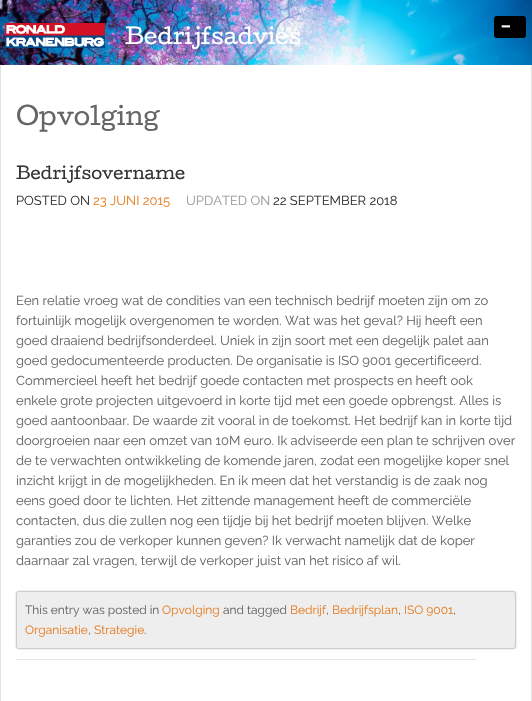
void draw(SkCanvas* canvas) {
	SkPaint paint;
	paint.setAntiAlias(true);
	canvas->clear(0xffffffff);
	canvas->drawImageRect(SkImages::DeferredFromEncodedData(SkData::MakeFromFileName("img1.png")), SkRect::MakeXYWH(0, 0, 532, 65), SkSamplingOptions());
	canvas->drawImageRect(SkImages::DeferredFromEncodedData(SkData::MakeFromFileName("img2.png")), SkRect::MakeXYWH(5, 23, 100, 25), SkSamplingOptions());
	SkFont f1(fontMgr->matchFamilyStyle("Cutive", SkFontStyle::Normal()), 21);
	f1.setSubpixel(true);
	paint.setColor(0xffffffff);
	canvas->drawString("Bedrijfsadvies", 125, 44, f1, paint);
	paint.setColor(0xff000000);
	canvas->drawRoundRect(SkRect::MakeXYWH(494, 16, 32, 22), 3, 3, paint);
	SkFont f2(fontMgr->matchFamilyStyle("Raleway", SkFontStyle::Normal()), 28);
	f2.setSubpixel(true);
	paint.setColor(0xffffffff);
	canvas->drawString("-", 500, 34, f2, paint);
	paint.setColor(0xffe2e2e2);
	canvas->drawRect(SkRect::MakeXYWH(531, 65, 1, 636), paint);
	canvas->drawRect(SkRect::MakeXYWH(0, 65, 1, 636), paint);
	SkFont f3(fontMgr->matchFamilyStyle("Cutive", SkFontStyle::Normal()), 24);
	f3.setSubpixel(true);
	paint.setColor(0xff666666);
	canvas->drawString("Opvolging", 16, 125, f3, paint);
	SkFont f4(fontMgr->matchFamilyStyle("Cutive", SkFontStyle::Normal()), 16);
	f4.setSubpixel(true);
	paint.setColor(0xff333333);
	canvas->drawString("Bedrijfsovername", 16, 179, f4, paint);
	SkFont f5(fontMgr->matchFamilyStyle("Raleway", SkFontStyle::Normal()), 13);
	f5.setSubpixel(true);
	canvas->drawString("POSTED ON", 16, 205, f5, paint);
	paint.setColor(0xffe77e23);
	canvas->drawString("23 JUNI 2015", 93, 205, f5, paint);
	paint.setColor(0xff999999);
	canvas->drawString("UPDATED ON", 186, 205, f5, paint);
	paint.setColor(0xff333333);
	canvas->drawString("22 SEPTEMBER 2018", 273, 205, f5, paint);
	paint.setColor(0xff666666);
	canvas->drawString("Een relatie vroeg wat de condities van een technisch bedrijf moeten zijn om zo", 16, 305, f5, paint);
	canvas->drawString("fortuinlijk mogelijk overgenomen te worden. Wat was het geval? Hij heeft een", 16, 325, f5, paint);
	canvas->drawString("goed draaiend bedrijfsonderdeel. Uniek in zijn soort met een degelijk palet aan", 16, 345, f5, paint);
	canvas->drawString("goed gedocumenteerde producten. De organisatie is ISO 9001 gecertificeerd.", 16, 365, f5, paint);
	canvas->drawString("Commercieel heeft het bedrijf goede contacten met prospects en heeft ook", 16, 385, f5, paint);
	canvas->drawString("enkele grote projecten uitgevoerd in korte tijd met een goede opbrengst. Alles is", 16, 405, f5, paint);
	canvas->drawString("goed aantoonbaar. De waarde zit vooral in de toekomst. Het bedrijf kan in korte tijd", 16, 425, f5, paint);
	canvas->drawString("doorgroeien naar een omzet van 10M euro. Ik adviseerde een plan te schrijven over", 16, 445, f5, paint);
	canvas->drawString("de te verwachten ontwikkeling de komende jaren, zodat een mogelijke koper snel", 16, 465, f5, paint);
	canvas->drawString("inzicht krijgt in de mogelijkheden. En ik meen dat het verstandig is de zaak nog", 16, 485, f5, paint);
	canvas->drawString("eens goed door te lichten. Het zittende management heeft de commerciële", 16, 505, f5, paint);
	canvas->drawString("contacten, dus die zullen nog een tijdje bij het bedrijf moeten blijven. Welke", 16, 525, f5, paint);
	canvas->drawString("garanties zou de verkoper kunnen geven? Ik verwacht namelijk dat de koper", 16, 545, f5, paint);
	canvas->drawString("daarnaar zal vragen, terwijl de verkoper juist van het risico af wil.", 16, 565, f5, paint);
	paint.setColor(0x80999999);
	paint.setMaskFilter(SkMaskFilter::MakeBlur(kNormal_SkBlurStyle, 1));
	canvas->drawRoundRect(SkRect::MakeXYWH(16, 591, 500, 58), 3, 3, paint);
	paint.setMaskFilter(nullptr);
	paint.setColor(0xffeeeeee);
	canvas->drawRoundRect(SkRect::MakeXYWH(16.5, 591.5, 499, 57), 2.5, 2.5, paint);
	paint.setStroke(true);
	paint.setStrokeWidth(1);
	paint.setColor(0xffcccccc);
	canvas->drawRoundRect(SkRect::MakeXYWH(16.5, 591.5, 499, 57), 2.5, 2.5, paint);
	SkFont f6(fontMgr->matchFamilyStyle("Raleway", SkFontStyle::Normal()), 12);
	f6.setSubpixel(true);
	paint.setStroke(false);
	paint.setColor(0xff666666);
	canvas->drawString("This entry was posted in", 25, 614, f6, paint);
	paint.setColor(0xffe77e23);
	canvas->drawString("Opvolging", 162, 614, f6, paint);
	paint.setColor(0xff666666);
	canvas->drawString("and tagged", 223, 614, f6, paint);
	paint.setColor(0xffe77e23);
	canvas->drawString("Bedrijf", 290, 614, f6, paint);
	paint.setColor(0xff666666);
	canvas->drawString(",", 326, 614, f6, paint);
	paint.setColor(0xffe77e23);
	canvas->drawString("Bedrijfsplan", 332, 614, f6, paint);
	paint.setColor(0xff666666);
	canvas->drawString(",", 398, 614, f6, paint);
	paint.setColor(0xffe77e23);
	canvas->drawString("ISO 9001", 404, 614, f6, paint);
	paint.setColor(0xff666666);
	canvas->drawString(",", 453, 614, f6, paint);
	paint.setColor(0xffe77e23);
	canvas->drawString("Organisatie", 25, 634, f6, paint);
	paint.setColor(0xff666666);
	canvas->drawString(",", 88, 634, f6, paint);
	paint.setColor(0xffe77e23);
	canvas->drawString("Strategie", 94, 634, f6, paint);
	paint.setColor(0xff666666);
	canvas->drawString(".", 144, 634, f6, paint);
	paint.setColor(0xffe5e5e5);
	canvas->drawRect(SkRect::MakeXYWH(16, 659, 460, 1), paint);
}
